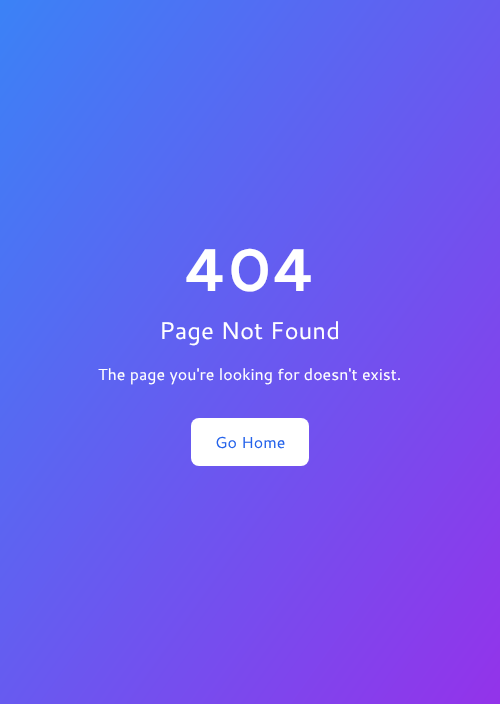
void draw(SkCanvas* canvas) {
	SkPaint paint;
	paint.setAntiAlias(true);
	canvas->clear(0xffffffff);
	{
		const SkColor colors[] = {0xff3b82f6, 0xff9333ea};
		const float stops[] = {0, 1};
		const SkPoint ends[] = {{-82, 116}, {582, 588}};
		paint.setShader(SkGradientShader::MakeLinear(ends, colors, stops, 2, SkTileMode::kClamp));
		paint.setAlpha(255);
	}
	canvas->drawRect(SkRect::MakeXYWH(0, 0, 500, 704), paint);
	SkFont f1(fontMgr->matchFamilyStyle("Cantarell", SkFontStyle::Bold()), 60);
	f1.setSubpixel(true);
	paint.setShader(nullptr);
	paint.setColor(0xffffffff);
	canvas->drawString("404", 183, 291, f1, paint);
	SkFont f2(fontMgr->matchFamilyStyle("Cantarell", SkFontStyle::Normal()), 24);
	f2.setSubpixel(true);
	canvas->drawString("Page Not Found", 159, 339, f2, paint);
	SkFont f3(fontMgr->matchFamilyStyle("Cantarell", SkFontStyle::Normal()), 16);
	f3.setSubpixel(true);
	canvas->drawString("The page you're looking for doesn't exist.", 98, 380, f3, paint);
	canvas->drawRoundRect(SkRect::MakeXYWH(191, 418, 118, 48), 8, 8, paint);
	paint.setColor(0xff2563eb);
	canvas->drawString("Go Home", 215, 448, f3, paint);
}
